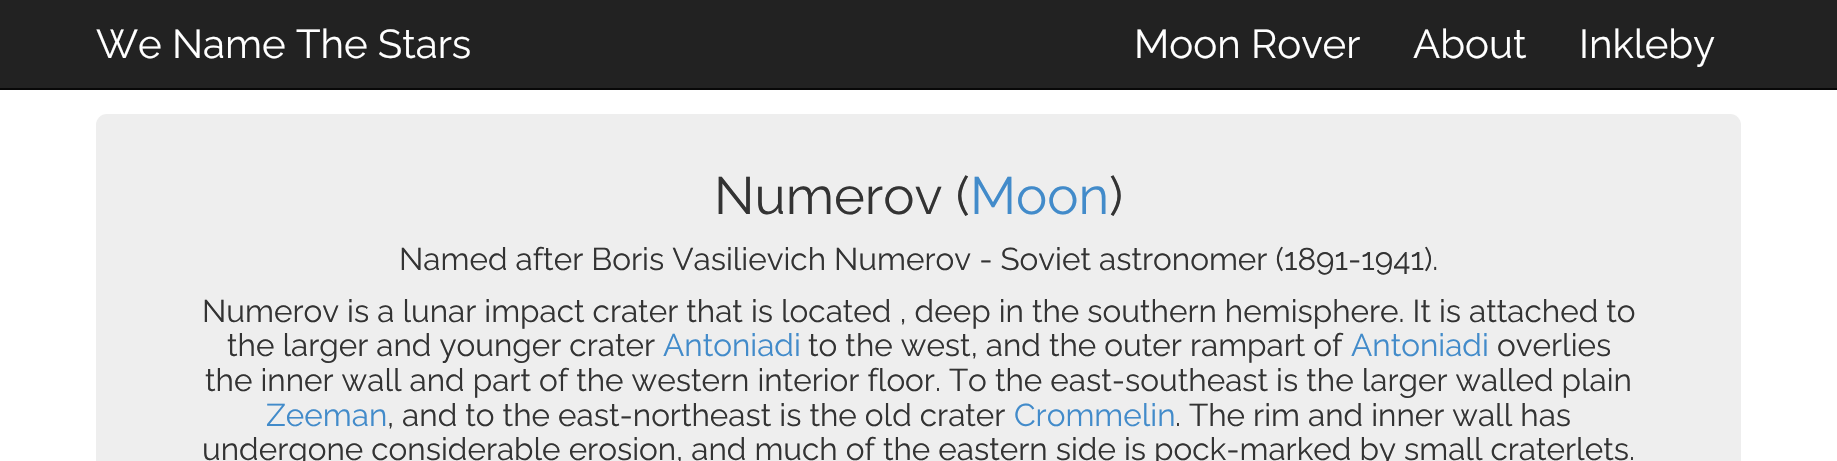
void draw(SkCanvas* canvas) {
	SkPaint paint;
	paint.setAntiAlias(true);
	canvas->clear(0xffffffff);
	paint.setColor(0xff222222);
	canvas->drawRect(SkRect::MakeXYWH(0, 0, 1837, 88), paint);
	paint.setColor(0xff080808);
	canvas->drawRect(SkRect::MakeXYWH(0, 88, 1837, 2), paint);
	SkFont f1(fontMgr->matchFamilyStyle("Raleway", SkFontStyle::Normal()), 40.25);
	f1.setSubpixel(true);
	paint.setColor(0xffffffff);
	canvas->drawString("We Name The Stars", 96, 58, f1, paint);
	canvas->drawString("Moon Rover", 1134, 58, f1, paint);
	canvas->drawString("About", 1413, 58, f1, paint);
	canvas->drawString("Inkleby", 1579, 58, f1, paint);
	paint.setColor(0xffeeeeee);
	canvas->drawRoundRect(SkRect::MakeXYWH(96, 114, 1645, 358), 11, 11, paint);
	SkFont f2(fontMgr->matchFamilyStyle("Raleway", SkFontStyle::Normal()), 52.5);
	f2.setSubpixel(true);
	paint.setColor(0xff333333);
	canvas->drawString("Numerov (", 714, 214, f2, paint);
	paint.setColor(0xff428bca);
	canvas->drawString("Moon", 970, 214, f2, paint);
	paint.setColor(0xff333333);
	canvas->drawString(")", 1109, 214, f2, paint);
	SkFont f3(fontMgr->matchFamilyStyle("Raleway", SkFontStyle::Normal()), 31.5);
	f3.setSubpixel(true);
	canvas->drawString("Named after Boris Vasilievich Numerov - Soviet astronomer (1891-1941).", 399, 270, f3, paint);
	canvas->drawString("Numerov is a lunar impact crater that is located , deep in the southern hemisphere. It is attached to", 202, 322, f3, paint);
	canvas->drawString("the larger and younger crater", 227, 356, f3, paint);
	paint.setColor(0xff428bca);
	canvas->drawString("Antoniadi", 663, 356, f3, paint);
	paint.setColor(0xff333333);
	canvas->drawString("to the west, and the outer rampart of", 808, 356, f3, paint);
	paint.setColor(0xff428bca);
	canvas->drawString("Antoniadi", 1351, 356, f3, paint);
	paint.setColor(0xff333333);
	canvas->drawString("overlies", 1497, 356, f3, paint);
	canvas->drawString("the inner wall and part of the western interior floor. To the east-southeast is the larger walled plain", 205, 391, f3, paint);
	paint.setColor(0xff428bca);
	canvas->drawString("Zeeman", 266, 426, f3, paint);
	paint.setColor(0xff333333);
	canvas->drawString(", and to the east-northeast is the old crater", 387, 426, f3, paint);
	paint.setColor(0xff428bca);
	canvas->drawString("Crommelin", 1014, 426, f3, paint);
	paint.setColor(0xff333333);
	canvas->drawString(". The rim and inner wall has", 1175, 426, f3, paint);
	canvas->drawString("undergone considerable erosion, and much of the eastern side is pock-marked by small craterlets.", 202, 460, f3, paint);
}
